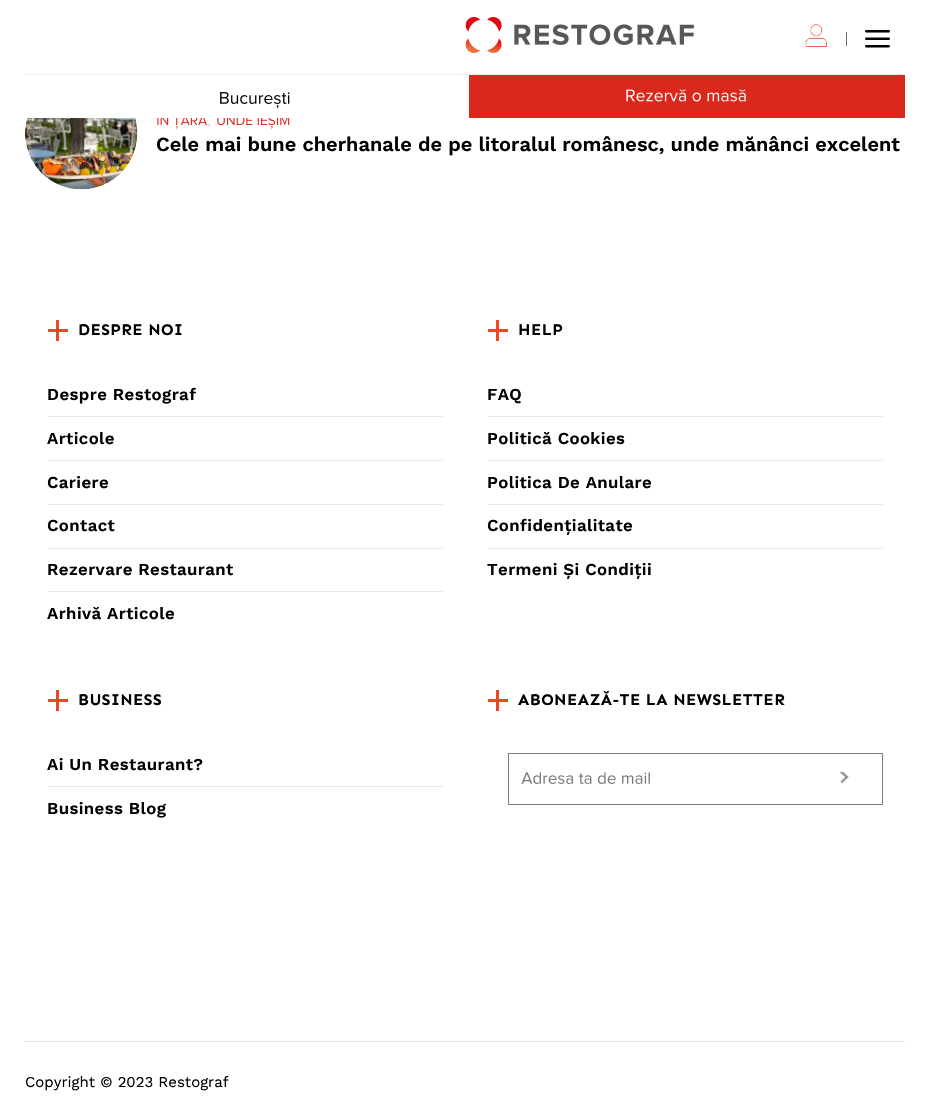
void draw(SkCanvas* canvas) {
	SkPaint paint;
	paint.setAntiAlias(true);
	auto spacedText = [&](const char* s, float x, float y, const SkFont& font, const SkPaint& ink, float letter, float word) {
		std::vector<SkGlyphID> glyphs(font.countText(s, strlen(s), SkTextEncoding::kUTF8));
		std::vector<float> xs(glyphs.size());
		font.textToGlyphs(s, strlen(s), SkTextEncoding::kUTF8, glyphs);
		font.getXPos(glyphs, xs, x);
		float extra = 0;
		for (size_t i = 0; i < glyphs.size(); i++) {
			xs[i] += extra;
			extra += letter + word * (glyphs[i] == font.unicharToGlyph(' '));
		}
		canvas->drawTextBlob(SkTextBlob::MakeFromPosHGlyphs(glyphs, xs, y, font), 0, 0, ink);
	};
	canvas->clear(0xffffffff);
	paint.setColor(0xffeeeeee);
	canvas->drawRect(SkRect::MakeXYWH(25, 74, 880, 1), paint);
	canvas->drawImageRect(SkImages::DeferredFromEncodedData(SkData::MakeFromFileName("img1.png")), SkRect::MakeXYWH(465, 17, 229, 36), SkSamplingOptions());
	canvas->drawImageRect(SkImages::DeferredFromEncodedData(SkData::MakeFromFileName("img2.png")), SkRect::MakeXYWH(805, 24, 22, 23), SkSamplingOptions());
	paint.setColor(0xff6b6b6b);
	canvas->drawRect(SkRect::MakeXYWH(846, 32, 1, 14), paint);
	canvas->drawImageRect(SkImages::DeferredFromEncodedData(SkData::MakeFromFileName("img3.png")), SkRect::MakeXYWH(865, 30, 25, 18), SkSamplingOptions());
	canvas->drawImageRect(SkImages::DeferredFromEncodedData(SkData::MakeFromFileName("img4.png")), SkRect::MakeXYWH(220, 92, 70, 17), SkSamplingOptions());
	paint.setColor(0xffda291c);
	canvas->drawRect(SkRect::MakeXYWH(469, 75, 436, 43), paint);
	canvas->drawImageRect(SkImages::DeferredFromEncodedData(SkData::MakeFromFileName("img5.png")), SkRect::MakeXYWH(626, 89, 120, 13), SkSamplingOptions());
	canvas->drawImageRect(SkImages::DeferredFromEncodedData(SkData::MakeFromFileName("img6.png")), SkRect::MakeXYWH(25, 118, 113, 72), SkSamplingOptions());
	canvas->drawImageRect(SkImages::DeferredFromEncodedData(SkData::MakeFromFileName("img7.png")), SkRect::MakeXYWH(157, 118, 50, 11), SkSamplingOptions());
	canvas->drawImageRect(SkImages::DeferredFromEncodedData(SkData::MakeFromFileName("img8.png")), SkRect::MakeXYWH(208, 123, 2, 4), SkSamplingOptions());
	canvas->drawImageRect(SkImages::DeferredFromEncodedData(SkData::MakeFromFileName("img9.png")), SkRect::MakeXYWH(217, 118, 73, 11), SkSamplingOptions());
	SkFont f1(fontMgr->matchFamilyStyle("Work Sans", SkFontStyle(600, SkFontStyle::kNormal_Width, SkFontStyle::kUpright_Slant)), 20);
	f1.setSubpixel(true);
	paint.setColor(0xff000000);
	canvas->drawString("Cele mai bune cherhanale de pe litoralul românesc, unde mănânci excelent", 156, 151, f1, paint);
	paint.setColor(0xffef4726);
	canvas->drawRect(SkRect::MakeXYWH(56, 320, 3, 21), paint);
	SkFont f2(fontMgr->matchFamilyStyle("Sen", SkFontStyle::Bold()), 16.25);
	f2.setSubpixel(true);
	paint.setColor(0xff000000);
	spacedText("DESPRE NOI", 78, 335, f2, paint, 0.4, 0);
	paint.setColor(0xffef4726);
	canvas->drawRect(SkRect::MakeXYWH(48, 329, 20, 3), paint);
	SkFont f3(fontMgr->matchFamilyStyle("Work Sans", SkFontStyle(600, SkFontStyle::kNormal_Width, SkFontStyle::kUpright_Slant)), 16.75);
	f3.setSubpixel(true);
	paint.setColor(0xff000000);
	spacedText("Despre Restograf", 47, 400, f3, paint, 0.4, 0);
	paint.setColor(0xffe6e6e6);
	canvas->drawRect(SkRect::MakeXYWH(48, 416, 395, 1), paint);
	paint.setColor(0xff000000);
	spacedText("Articole", 47, 444, f3, paint, 0.4, 0);
	paint.setColor(0xffe6e6e6);
	canvas->drawRect(SkRect::MakeXYWH(48, 460, 395, 1), paint);
	paint.setColor(0xff000000);
	spacedText("Cariere", 47, 488, f3, paint, 0.4, 0);
	paint.setColor(0xffe6e6e6);
	canvas->drawRect(SkRect::MakeXYWH(48, 504, 395, 1), paint);
	paint.setColor(0xff000000);
	spacedText("Contact", 47, 531, f3, paint, 0.4, 0);
	paint.setColor(0xffe6e6e6);
	canvas->drawRect(SkRect::MakeXYWH(48, 548, 395, 1), paint);
	paint.setColor(0xff000000);
	spacedText("Rezervare Restaurant", 47, 575, f3, paint, 0.4, 0);
	paint.setColor(0xffe6e6e6);
	canvas->drawRect(SkRect::MakeXYWH(48, 591, 395, 1), paint);
	paint.setColor(0xff000000);
	spacedText("Arhivă Articole", 47, 619, f3, paint, 0.4, 0);
	paint.setColor(0xffef4726);
	canvas->drawRect(SkRect::MakeXYWH(496, 320, 3, 21), paint);
	paint.setColor(0xff000000);
	spacedText("HELP", 518, 335, f2, paint, 0.4, 0);
	paint.setColor(0xffef4726);
	canvas->drawRect(SkRect::MakeXYWH(488, 329, 20, 3), paint);
	paint.setColor(0xff000000);
	spacedText("FAQ", 487, 400, f3, paint, 0.4, 0);
	paint.setColor(0xffe6e6e6);
	canvas->drawRect(SkRect::MakeXYWH(488, 416, 395, 1), paint);
	paint.setColor(0xff000000);
	spacedText("Politică Cookies", 487, 444, f3, paint, 0.4, 0);
	paint.setColor(0xffe6e6e6);
	canvas->drawRect(SkRect::MakeXYWH(488, 460, 395, 1), paint);
	paint.setColor(0xff000000);
	spacedText("Politica De Anulare", 487, 488, f3, paint, 0.4, 0);
	paint.setColor(0xffe6e6e6);
	canvas->drawRect(SkRect::MakeXYWH(488, 504, 395, 1), paint);
	paint.setColor(0xff000000);
	spacedText("Confidențialitate", 487, 531, f3, paint, 0.4, 0);
	paint.setColor(0xffe6e6e6);
	canvas->drawRect(SkRect::MakeXYWH(488, 548, 395, 1), paint);
	paint.setColor(0xff000000);
	spacedText("Termeni Și Condiții", 487, 575, f3, paint, 0.4, 0);
	paint.setColor(0xffef4726);
	canvas->drawRect(SkRect::MakeXYWH(56, 690, 3, 21), paint);
	paint.setColor(0xff000000);
	spacedText("BUSINESS", 78, 705, f2, paint, 0.4, 0);
	paint.setColor(0xffef4726);
	canvas->drawRect(SkRect::MakeXYWH(48, 699, 20, 3), paint);
	paint.setColor(0xff000000);
	spacedText("Ai Un Restaurant?", 47, 770, f3, paint, 0.4, 0);
	paint.setColor(0xffe6e6e6);
	canvas->drawRect(SkRect::MakeXYWH(48, 786, 395, 1), paint);
	paint.setColor(0xff000000);
	spacedText("Business Blog", 47, 814, f3, paint, 0.4, 0);
	paint.setColor(0xffef4726);
	canvas->drawRect(SkRect::MakeXYWH(496, 690, 3, 21), paint);
	paint.setColor(0xff000000);
	spacedText("ABONEAZĂ-TE LA NEWSLETTER", 518, 705, f2, paint, 0.4, 0);
	paint.setColor(0xffef4726);
	canvas->drawRect(SkRect::MakeXYWH(488, 699, 20, 3), paint);
	paint.setStroke(true);
	paint.setStrokeWidth(1);
	paint.setColor(0xff7c7c7c);
	canvas->drawRect(SkRect::MakeXYWH(508.5, 753.5, 374, 51), paint);
	canvas->drawImageRect(SkImages::DeferredFromEncodedData(SkData::MakeFromFileName("img10.png")), SkRect::MakeXYWH(521, 772, 129, 12), SkSamplingOptions());
	canvas->drawImageRect(SkImages::DeferredFromEncodedData(SkData::MakeFromFileName("img11.png")), SkRect::MakeXYWH(840, 772, 9, 12), SkSamplingOptions());
	paint.setStroke(false);
	paint.setColor(0xffe6e6e6);
	canvas->drawRect(SkRect::MakeXYWH(25, 1041, 880, 1), paint);
	SkFont f4(fontMgr->matchFamilyStyle("Work Sans", SkFontStyle::Normal()), 15);
	f4.setSubpixel(true);
	paint.setColor(0xff000000);
	canvas->drawString("Copyright © 2023 Restograf", 25, 1087, f4, paint);
}
